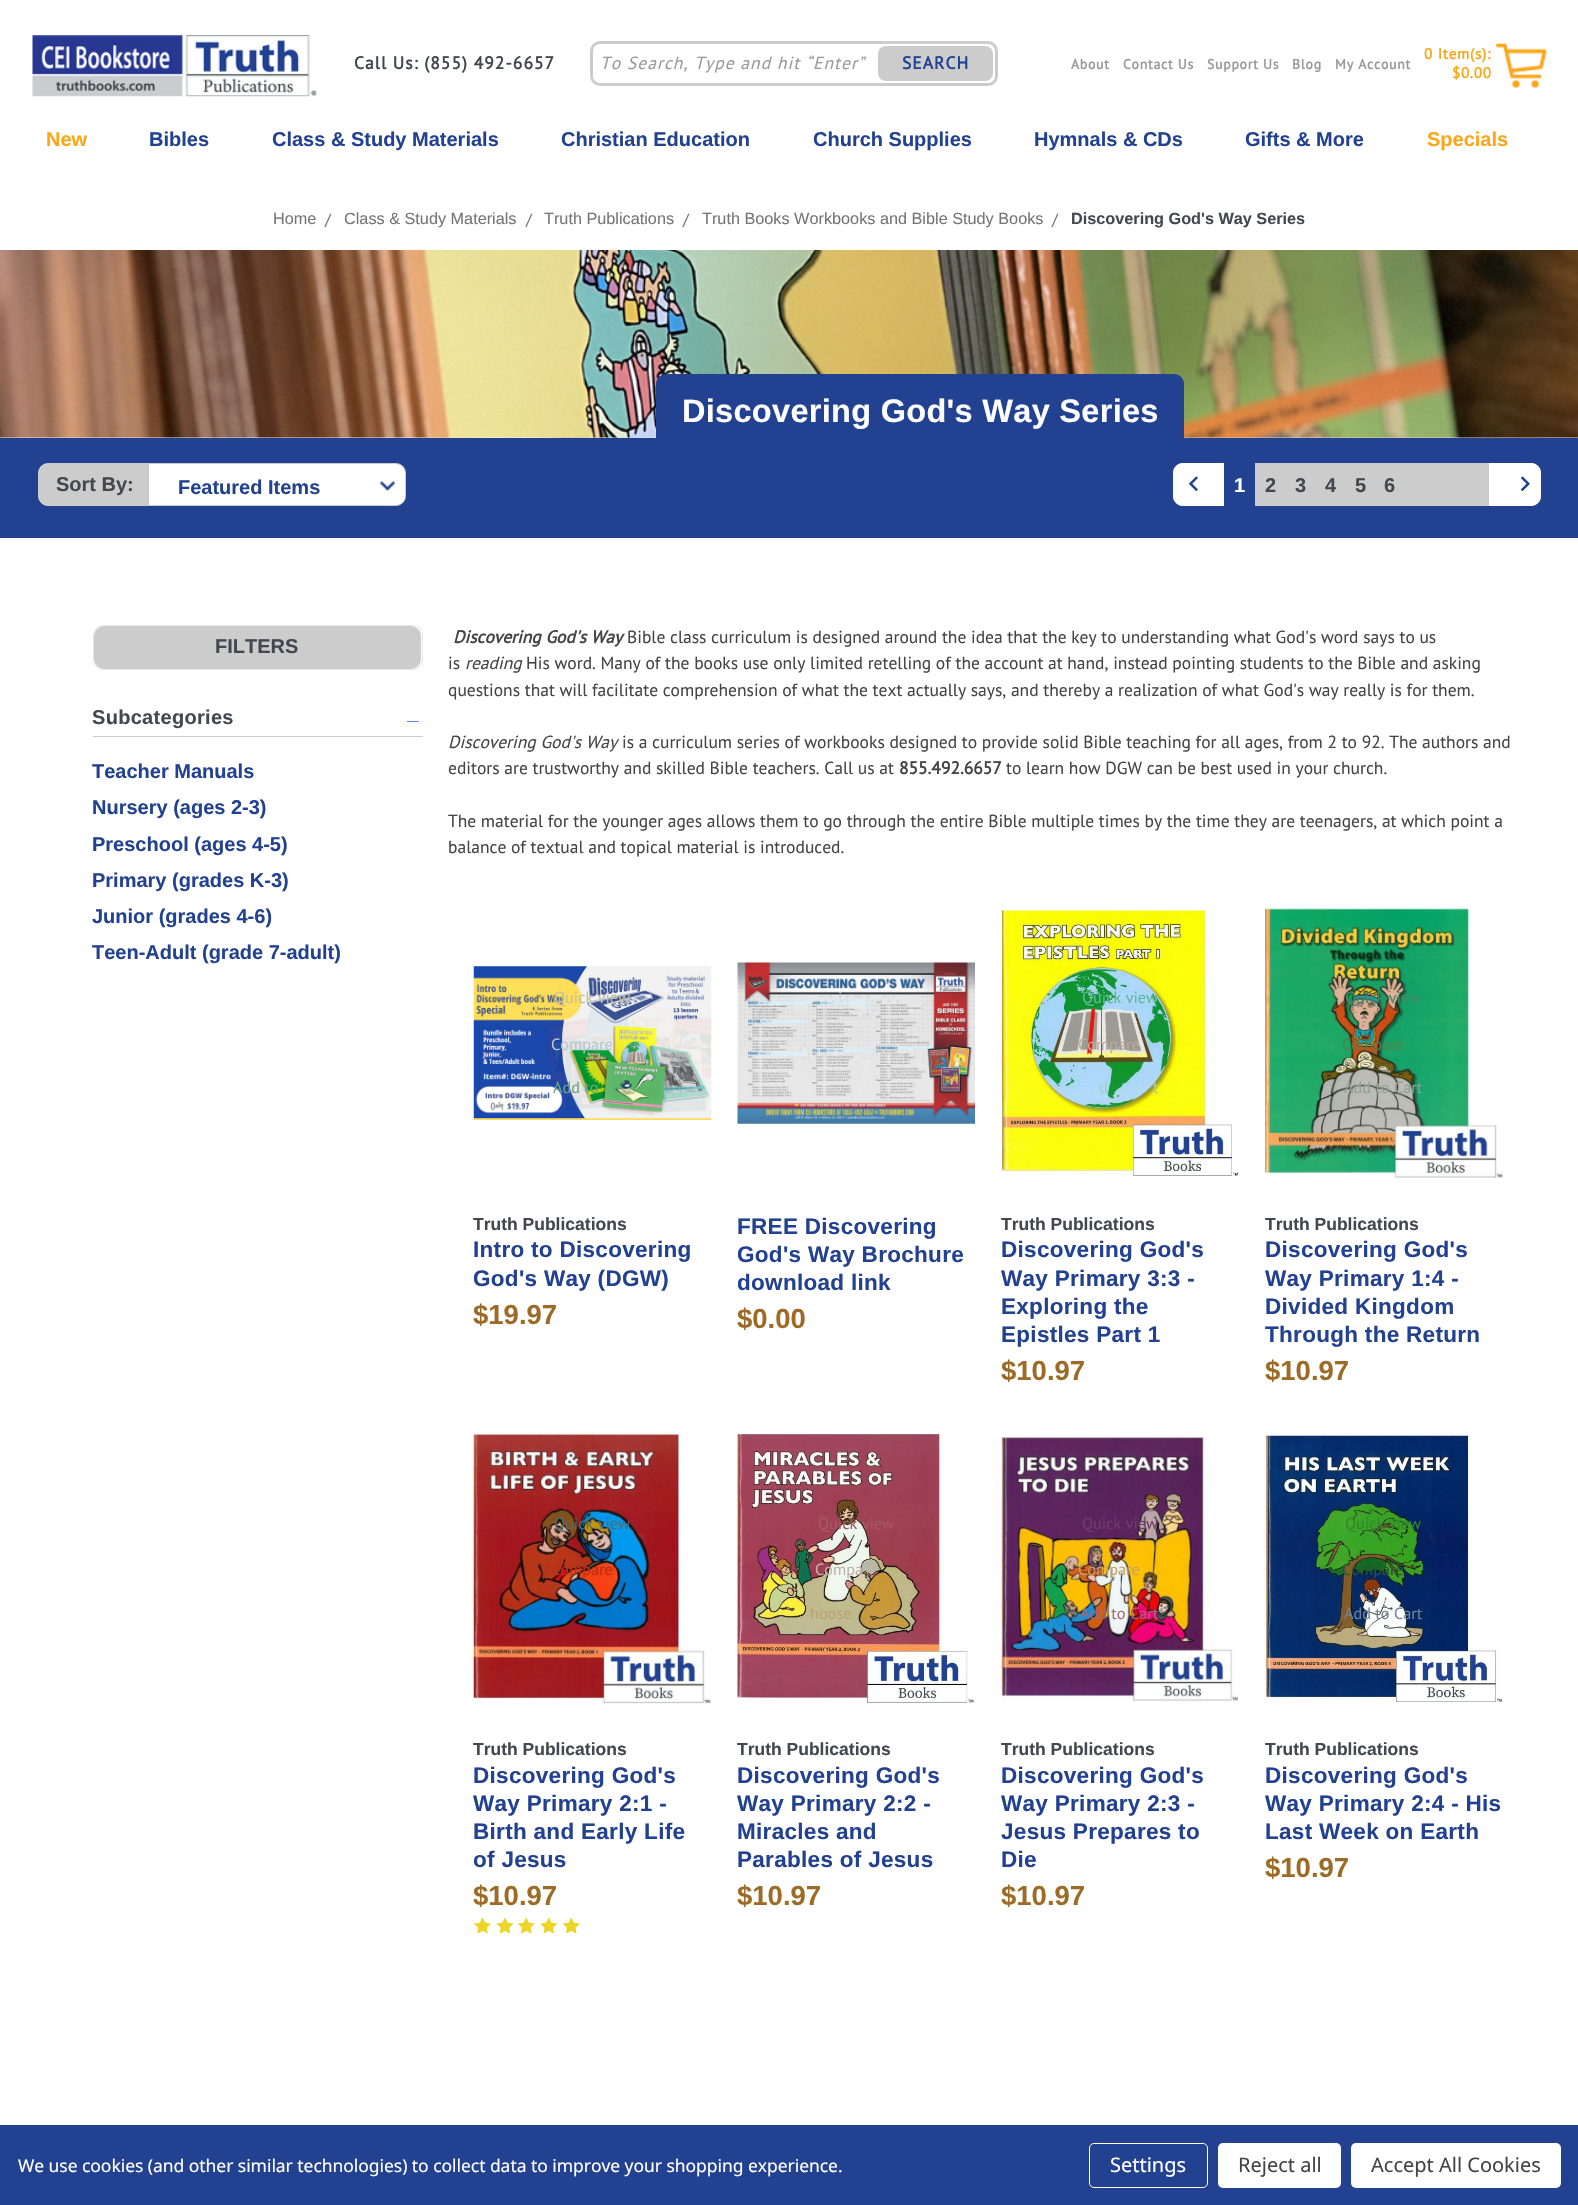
void draw(SkCanvas* canvas) {
	SkPaint paint;
	paint.setAntiAlias(true);
	auto spacedText = [&](const char* s, float x, float y, const SkFont& font, const SkPaint& ink, float letter, float word) {
		std::vector<SkGlyphID> glyphs(font.countText(s, strlen(s), SkTextEncoding::kUTF8));
		std::vector<float> xs(glyphs.size());
		font.textToGlyphs(s, strlen(s), SkTextEncoding::kUTF8, glyphs);
		font.getXPos(glyphs, xs, x);
		float extra = 0;
		for (size_t i = 0; i < glyphs.size(); i++) {
			xs[i] += extra;
			extra += letter + word * (glyphs[i] == font.unicharToGlyph(' '));
		}
		canvas->drawTextBlob(SkTextBlob::MakeFromPosHGlyphs(glyphs, xs, y, font), 0, 0, ink);
	};
	auto svgPath = [&](const char* data, bool evenOdd = false) {
		SkPath result = *SkParsePath::FromSVGString(data);
		if (evenOdd) result.setFillType(SkPathFillType::kEvenOdd);
		return result;
	};
	canvas->clear(0xffffffff);
	canvas->drawImageRect(SkImages::DeferredFromEncodedData(SkData::MakeFromFileName("img1.png")), SkRect::MakeXYWH(32, 35, 285, 62), SkSamplingOptions());
	SkFont f1(fontMgr->matchFamilyStyle("PT Sans", SkFontStyle::Bold()), 17.5);
	f1.setSubpixel(true);
	paint.setColor(0xff41484f);
	spacedText("Call Us: (855) 492-6657", 354, 69, f1, paint, 1.05, 0);
	paint.setStroke(true);
	paint.setStrokeWidth(3);
	paint.setColor(0xffcccccc);
	canvas->drawRoundRect(SkRect::MakeXYWH(591.5, 42.5, 405, 42), 8.5, 8.5, paint);
	SkFont f2(fontMgr->matchFamilyStyle("PT Sans", SkFontStyle::Italic()), 17.5);
	f2.setSubpixel(true);
	paint.setStroke(false);
	paint.setColor(0xff999999);
	spacedText("To Search, Type and hit “Enter”", 600, 69, f2, paint, 1.05, 0);
	paint.setColor(0xffcccccc);
	canvas->drawRoundRect(SkRect::MakeXYWH(878, 46, 115, 35), 8, 8, paint);
	paint.setColor(0xff224191);
	spacedText("SEARCH", 902, 69, f1, paint, 1.05, 0);
	SkFont f3(fontMgr->matchFamilyStyle("PT Sans", SkFontStyle::Bold()), 13.75);
	f3.setSubpixel(true);
	paint.setColor(0xff999999);
	spacedText("About", 1071, 69, f3, paint, 0.75, 0);
	spacedText("Contact Us", 1123, 69, f3, paint, 0.75, 0);
	spacedText("Support Us", 1207, 69, f3, paint, 0.75, 0);
	spacedText("Blog", 1292, 69, f3, paint, 0.75, 0);
	spacedText("My Account", 1335, 69, f3, paint, 0.75, 0);
	SkFont f4(fontMgr->matchFamilyStyle("PT Sans", SkFontStyle::Bold()), 15);
	f4.setSubpixel(true);
	paint.setColor(0xfffaa619);
	spacedText("0 Item(s):", 1424, 59, f4, paint, 0.75, 0);
	spacedText("$0.00", 1452, 78, f4, paint, 0.75, 0);
	canvas->drawImageRect(SkImages::DeferredFromEncodedData(SkData::MakeFromFileName("img2.png")), SkRect::MakeXYWH(1496, 43, 51, 45), SkSamplingOptions());
	SkFont f5(fontMgr->matchFamilyStyle("Liberation Sans", SkFontStyle::Bold()), 20);
	f5.setSubpixel(true);
	canvas->drawString("New", 46, 146, f5, paint);
	paint.setColor(0xff224191);
	canvas->drawString("Bibles", 149, 146, f5, paint);
	canvas->drawString("Class & Study Materials", 272, 146, f5, paint);
	canvas->drawString("Christian Education", 561, 146, f5, paint);
	canvas->drawString("Church Supplies", 813, 146, f5, paint);
	canvas->drawString("Hymnals & CDs", 1034, 146, f5, paint);
	canvas->drawString("Gifts & More", 1245, 146, f5, paint);
	paint.setColor(0xfffaa619);
	canvas->drawString("Specials", 1427, 146, f5, paint);
	SkFont f6(fontMgr->matchFamilyStyle("Liberation Sans", SkFontStyle::Normal()), 16.25);
	f6.setSubpixel(true);
	paint.setColor(0xff757575);
	canvas->drawString("Home", 273, 224, f6, paint);
	SkFont f7(fontMgr->matchFamilyStyle("PT Sans", SkFontStyle::Normal()), 16.25);
	f7.setSubpixel(true);
	canvas->drawString("/", 325, 225, f7, paint);
	canvas->drawString("Class & Study Materials", 344, 224, f6, paint);
	canvas->drawString("/", 526, 225, f7, paint);
	canvas->drawString("Truth Publications", 544, 224, f6, paint);
	canvas->drawString("/", 683, 225, f7, paint);
	canvas->drawString("Truth Books Workbooks and Bible Study Books", 702, 224, f6, paint);
	canvas->drawString("/", 1052, 225, f7, paint);
	SkFont f8(fontMgr->matchFamilyStyle("Liberation Sans", SkFontStyle::Bold()), 16.25);
	f8.setSubpixel(true);
	paint.setColor(0xff41484f);
	canvas->drawString("Discovering God's Way Series", 1071, 224, f8, paint);
	canvas->drawImageRect(SkImages::DeferredFromEncodedData(SkData::MakeFromFileName("img3.png")), SkRect::MakeXYWH(0, 437, 1578, 1), SkSamplingOptions());
	canvas->drawImageRect(SkImages::DeferredFromEncodedData(SkData::MakeFromFileName("img4.png")), SkRect::MakeXYWH(0, 250, 1578, 188), SkSamplingOptions());
	paint.setColor(0xff224191);
	canvas->drawPath(svgPath("M666 374H1174C1179.5 374 1184 378.5 1184 384V438H656V384C656 378.5 660.5 374 666 374Z"), paint);
	SkFont f9(fontMgr->matchFamilyStyle("Liberation Sans", SkFontStyle::Bold()), 32.5);
	f9.setSubpixel(true);
	paint.setColor(0xffffffff);
	spacedText("Discovering God's Way Series", 682, 422, f9, paint, 0.3, 0);
	paint.setColor(0xff224191);
	canvas->drawRect(SkRect::MakeXYWH(0, 438, 1578, 100), paint);
	paint.setColor(0xffffffff);
	canvas->drawRoundRect(SkRect::MakeXYWH(38.5, 463.5, 367, 42), 9.5, 9.5, paint);
	paint.setStroke(true);
	paint.setStrokeWidth(1);
	paint.setColor(0xffcccccc);
	canvas->drawRoundRect(SkRect::MakeXYWH(38.5, 463.5, 367, 42), 9.5, 9.5, paint);
	paint.setStroke(false);
	canvas->drawPath(svgPath("M48 464H149V505H48C43 505 39 501 39 496V473C39 468 43 464 48 464Z"), paint);
	paint.setColor(0xff41484f);
	canvas->drawString("Sort By:", 56, 491, f5, paint);
	canvas->drawImageRect(SkImages::DeferredFromEncodedData(SkData::MakeFromFileName("img5.png")), SkRect::MakeXYWH(380, 481, 15, 11), SkSamplingOptions());
	paint.setColor(0xff224191);
	canvas->drawString("Featured Items", 178, 494, f5, paint);
	paint.setColor(0xffcccccc);
	canvas->drawRoundRect(SkRect::MakeXYWH(1173, 463, 368, 43), 10, 10, paint);
	paint.setColor(0xffffffff);
	canvas->drawPath(svgPath("M1183 463H1225V506H1183C1177.5 506 1173 501.5 1173 496V473C1173 467.5 1177.5 463 1183 463Z"), paint);
	canvas->drawImageRect(SkImages::DeferredFromEncodedData(SkData::MakeFromFileName("img6.png")), SkRect::MakeXYWH(1188, 476, 10, 16), SkSamplingOptions());
	paint.setColor(0xff224191);
	canvas->drawRect(SkRect::MakeXYWH(1224, 463, 31, 43), paint);
	paint.setColor(0xffffffff);
	canvas->drawString("1", 1234, 492, f5, paint);
	paint.setColor(0xff41484f);
	canvas->drawString("2", 1265, 492, f5, paint);
	canvas->drawString("3", 1295, 492, f5, paint);
	canvas->drawString("4", 1325, 492, f5, paint);
	canvas->drawString("5", 1355, 492, f5, paint);
	canvas->drawString("6", 1384, 492, f5, paint);
	paint.setColor(0xffffffff);
	canvas->drawPath(svgPath("M1489 463H1531C1536.5 463 1541 467.5 1541 473V496C1541 501.5 1536.5 506 1531 506H1489Z"), paint);
	canvas->drawImageRect(SkImages::DeferredFromEncodedData(SkData::MakeFromFileName("img7.png")), SkRect::MakeXYWH(1520, 476, 10, 16), SkSamplingOptions());
	SkFont f10(fontMgr->matchFamilyStyle("PT Sans", SkFontStyle::BoldItalic()), 17.5);
	f10.setSubpixel(true);
	paint.setColor(0xff444444);
	canvas->drawString("Discovering God's Way", 453, 643, f10, paint);
	SkFont f11(fontMgr->matchFamilyStyle("PT Sans", SkFontStyle::Normal()), 17.5);
	f11.setSubpixel(true);
	canvas->drawString("Bible class curriculum is designed around the idea that the key to understanding what God's word says to us", 627, 643, f11, paint);
	canvas->drawString("is", 448, 669, f11, paint);
	canvas->drawString("reading", 465, 669, f2, paint);
	canvas->drawString("His word. Many of the books use only limited retelling of the account at hand, instead pointing students to the Bible and asking", 526, 669, f11, paint);
	canvas->drawString("questions that will facilitate comprehension of what the text actually says, and thereby a realization of what God's way really is for them.", 448, 696, f11, paint);
	canvas->drawString("Discovering God's Way", 448, 748, f2, paint);
	canvas->drawString("is a curriculum series of workbooks designed to provide solid Bible teaching for all ages, from 2 to 92. The authors and", 622, 748, f11, paint);
	canvas->drawString("editors are trustworthy and skilled Bible teachers. Call us at", 448, 774, f11, paint);
	canvas->drawString("855.492.6657", 899, 774, f1, paint);
	canvas->drawString("to learn how DGW can be best used in your church.", 1006, 774, f11, paint);
	canvas->drawString("The material for the younger ages allows them to go through the entire Bible multiple times by the time they are teenagers, at which point a", 448, 827, f11, paint);
	canvas->drawString("balance of textual and topical material is introduced.", 448, 853, f11, paint);
	canvas->drawImageRect(SkImages::DeferredFromEncodedData(SkData::MakeFromFileName("img8.png")), SkRect::MakeXYWH(473, 966, 239, 154), SkSamplingOptions());
	paint.setColor(0xffc4bfa0);
	canvas->drawString("Quick view", 554, 1003, f7, paint);
	paint.setColor(0xffb8c6d1);
	canvas->drawString("Compare", 551, 1050, f7, paint);
	paint.setColor(0xff72a283);
	canvas->drawString("Add to", 553, 1093, f7, paint);
	SkFont f12(fontMgr->matchFamilyStyle("Liberation Sans", SkFontStyle::Bold()), 17.5);
	f12.setSubpixel(true);
	paint.setColor(0xff41484f);
	canvas->drawString("Truth Publications", 473, 1230, f12, paint);
	SkFont f13(fontMgr->matchFamilyStyle("Liberation Sans", SkFontStyle::Bold()), 22.5);
	f13.setSubpixel(true);
	paint.setColor(0xff224191);
	spacedText("Intro to Discovering", 473, 1257, f13, paint, 0.3, 0);
	spacedText("God's Way (DGW)", 473, 1286, f13, paint, 0.3, 0);
	SkFont f14(fontMgr->matchFamilyStyle("Liberation Sans", SkFontStyle::Bold()), 27.5);
	f14.setSubpixel(true);
	paint.setColor(0xff9d6b25);
	canvas->drawString("$19.97", 473, 1324, f14, paint);
	canvas->drawImageRect(SkImages::DeferredFromEncodedData(SkData::MakeFromFileName("img9.png")), SkRect::MakeXYWH(737, 962, 238, 162), SkSamplingOptions());
	paint.setColor(0xffd3d7da);
	canvas->drawString("i", 838, 1003, f7, paint);
	paint.setColor(0xff224191);
	spacedText("FREE Discovering", 737, 1234, f13, paint, 0.3, 0);
	spacedText("God's Way Brochure", 737, 1262, f13, paint, 0.3, 0);
	spacedText("download link", 737, 1290, f13, paint, 0.3, 0);
	paint.setColor(0xff9d6b25);
	canvas->drawString("$0.00", 737, 1328, f14, paint);
	canvas->drawImageRect(SkImages::DeferredFromEncodedData(SkData::MakeFromFileName("img10.png")), SkRect::MakeXYWH(1001, 910, 238, 267), SkSamplingOptions());
	paint.setColor(0xff63b89b);
	canvas->drawString("Quick view", 1082, 1003, f7, paint);
	paint.setColor(0xffbcaba0);
	canvas->drawString("Compare", 1078, 1050, f7, paint);
	paint.setColor(0xffa2cec9);
	canvas->drawString("d", 1099, 1093, f7, paint);
	canvas->drawString("t", 1153, 1093, f7, paint);
	paint.setColor(0xff41484f);
	canvas->drawString("Truth Publications", 1001, 1230, f12, paint);
	paint.setColor(0xff224191);
	spacedText("Discovering God's", 1001, 1257, f13, paint, 0.3, 0);
	spacedText("Way Primary 3:3 -", 1001, 1286, f13, paint, 0.3, 0);
	spacedText("Exploring the", 1001, 1314, f13, paint, 0.3, 0);
	spacedText("Epistles Part 1", 1001, 1342, f13, paint, 0.3, 0);
	paint.setColor(0xff9d6b25);
	canvas->drawString("$10.97", 1001, 1380, f14, paint);
	canvas->drawImageRect(SkImages::DeferredFromEncodedData(SkData::MakeFromFileName("img11.png")), SkRect::MakeXYWH(1265, 908, 238, 270), SkSamplingOptions());
	paint.setColor(0xff488862);
	canvas->drawString("Quick view", 1345, 1003, f7, paint);
	paint.setColor(0xff50804b);
	canvas->drawString("Compare", 1342, 1050, f7, paint);
	paint.setColor(0xff90a095);
	canvas->drawString("Add to Cart", 1344, 1093, f7, paint);
	paint.setColor(0xff41484f);
	canvas->drawString("Truth Publications", 1265, 1230, f12, paint);
	paint.setColor(0xff224191);
	spacedText("Discovering God's", 1265, 1257, f13, paint, 0.3, 0);
	spacedText("Way Primary 1:4 -", 1265, 1286, f13, paint, 0.3, 0);
	spacedText("Divided Kingdom", 1265, 1314, f13, paint, 0.3, 0);
	spacedText("Through the Return", 1265, 1342, f13, paint, 0.3, 0);
	paint.setColor(0xff9d6b25);
	canvas->drawString("$10.97", 1265, 1380, f14, paint);
	canvas->drawImageRect(SkImages::DeferredFromEncodedData(SkData::MakeFromFileName("img12.png")), SkRect::MakeXYWH(473, 1433, 238, 271), SkSamplingOptions());
	paint.setColor(0xff4e6b6e);
	canvas->drawString("Quick view", 554, 1529, f7, paint);
	paint.setColor(0xffb63115);
	canvas->drawString("Compare", 551, 1575, f7, paint);
	paint.setColor(0xff41484f);
	canvas->drawString("Truth Publications", 473, 1755, f12, paint);
	paint.setColor(0xff224191);
	spacedText("Discovering God's", 473, 1783, f13, paint, 0.3, 0);
	spacedText("Way Primary 2:1 -", 473, 1811, f13, paint, 0.3, 0);
	spacedText("Birth and Early Life", 473, 1839, f13, paint, 0.3, 0);
	spacedText("of Jesus", 473, 1867, f13, paint, 0.3, 0);
	paint.setColor(0xff9d6b25);
	canvas->drawString("$10.97", 473, 1905, f14, paint);
	canvas->drawImageRect(SkImages::DeferredFromEncodedData(SkData::MakeFromFileName("img13.png")), SkRect::MakeXYWH(474, 1918, 17, 16), SkSamplingOptions());
	canvas->drawImageRect(SkImages::DeferredFromEncodedData(SkData::MakeFromFileName("img14.png")), SkRect::MakeXYWH(496, 1918, 18, 16), SkSamplingOptions());
	canvas->drawImageRect(SkImages::DeferredFromEncodedData(SkData::MakeFromFileName("img15.png")), SkRect::MakeXYWH(518, 1918, 17, 16), SkSamplingOptions());
	canvas->drawImageRect(SkImages::DeferredFromEncodedData(SkData::MakeFromFileName("img16.png")), SkRect::MakeXYWH(540, 1918, 17, 16), SkSamplingOptions());
	canvas->drawImageRect(SkImages::DeferredFromEncodedData(SkData::MakeFromFileName("img15.png")), SkRect::MakeXYWH(563, 1918, 17, 16), SkSamplingOptions());
	canvas->drawImageRect(SkImages::DeferredFromEncodedData(SkData::MakeFromFileName("img17.png")), SkRect::MakeXYWH(737, 1433, 238, 271), SkSamplingOptions());
	paint.setColor(0xffa45a65);
	canvas->drawString("Quick view", 818, 1529, f7, paint);
	paint.setColor(0xffc2b2aa);
	canvas->drawString("Compa", 815, 1575, f7, paint);
	paint.setColor(0xffb7a46c);
	canvas->drawString("hoose", 810, 1619, f7, paint);
	paint.setColor(0xff41484f);
	canvas->drawString("Truth Publications", 737, 1755, f12, paint);
	paint.setColor(0xff224191);
	spacedText("Discovering God's", 737, 1783, f13, paint, 0.3, 0);
	spacedText("Way Primary 2:2 -", 737, 1811, f13, paint, 0.3, 0);
	spacedText("Miracles and", 737, 1839, f13, paint, 0.3, 0);
	spacedText("Parables of Jesus", 737, 1867, f13, paint, 0.3, 0);
	paint.setColor(0xff9d6b25);
	canvas->drawString("$10.97", 737, 1905, f14, paint);
	canvas->drawImageRect(SkImages::DeferredFromEncodedData(SkData::MakeFromFileName("img18.png")), SkRect::MakeXYWH(1001, 1436, 237, 266), SkSamplingOptions());
	paint.setColor(0xff6e3e6b);
	canvas->drawString("Quick view", 1082, 1529, f7, paint);
	paint.setColor(0xffc9a163);
	canvas->drawString("Compare", 1078, 1575, f7, paint);
	paint.setColor(0xffa86574);
	canvas->drawString("Add to Cart", 1080, 1619, f7, paint);
	paint.setColor(0xff41484f);
	canvas->drawString("Truth Publications", 1001, 1755, f12, paint);
	paint.setColor(0xff224191);
	spacedText("Discovering God's", 1001, 1783, f13, paint, 0.3, 0);
	spacedText("Way Primary 2:3 -", 1001, 1811, f13, paint, 0.3, 0);
	spacedText("Jesus Prepares to", 1001, 1839, f13, paint, 0.3, 0);
	spacedText("Die", 1001, 1867, f13, paint, 0.3, 0);
	paint.setColor(0xff9d6b25);
	canvas->drawString("$10.97", 1001, 1905, f14, paint);
	canvas->drawImageRect(SkImages::DeferredFromEncodedData(SkData::MakeFromFileName("img19.png")), SkRect::MakeXYWH(1265, 1435, 238, 268), SkSamplingOptions());
	paint.setColor(0xff32872d);
	canvas->drawString("Quick view", 1345, 1529, f7, paint);
	paint.setColor(0xff265731);
	canvas->drawString("Compare", 1342, 1575, f7, paint);
	paint.setColor(0xff748296);
	canvas->drawString("Add to Cart", 1344, 1619, f7, paint);
	paint.setColor(0xff41484f);
	canvas->drawString("Truth Publications", 1265, 1755, f12, paint);
	paint.setColor(0xff224191);
	spacedText("Discovering God's", 1265, 1783, f13, paint, 0.3, 0);
	spacedText("Way Primary 2:4 - His", 1265, 1811, f13, paint, 0.3, 0);
	spacedText("Last Week on Earth", 1265, 1839, f13, paint, 0.3, 0);
	paint.setColor(0xff9d6b25);
	canvas->drawString("$10.97", 1265, 1877, f14, paint);
	paint.setStroke(true);
	paint.setColor(0xffe5e5e5);
	canvas->drawRoundRect(SkRect::MakeXYWH(93.5, 625.5, 329, 44), 9.5, 9.5, paint);
	paint.setStroke(false);
	paint.setColor(0xffcccccc);
	canvas->drawRoundRect(SkRect::MakeXYWH(94, 626, 327, 43), 10, 10, paint);
	paint.setColor(0xff41484f);
	canvas->drawString("FILTERS", 215, 653, f5, paint);
	paint.setColor(0xffcccccc);
	canvas->drawRect(SkRect::MakeXYWH(93, 736, 330, 1), paint);
	paint.setColor(0xff41484f);
	spacedText("Subcategories", 92, 724, f5, paint, 0.3, 0);
	paint.setColor(0xff6288e8);
	canvas->drawRect(SkRect::MakeXYWH(407, 721, 12, 1), paint);
	paint.setColor(0xff224191);
	canvas->drawString("Teacher Manuals", 92, 778, f5, paint);
	canvas->drawString("Nursery (ages 2-3)", 92, 814, f5, paint);
	canvas->drawString("Preschool (ages 4-5)", 92, 851, f5, paint);
	canvas->drawString("Primary (grades K-3)", 92, 887, f5, paint);
	canvas->drawString("Junior (grades 4-6)", 92, 923, f5, paint);
	canvas->drawString("Teen-Adult (grade 7-adult)", 92, 959, f5, paint);
	canvas->drawRect(SkRect::MakeXYWH(0, 2125, 1578, 80), paint);
	SkFont f15(fontMgr->matchFamilyStyle("Noto Sans", SkFontStyle::Normal()), 17.5);
	f15.setSubpixel(true);
	paint.setColor(0xffffffff);
	spacedText("We use cookies (and other similar technologies) to collect data to improve your shopping experience.", 18, 2172, f15, paint, -0.05, 0);
	paint.setStroke(true);
	canvas->drawRoundRect(SkRect::MakeXYWH(1089.5, 2143.5, 118, 44), 4.5, 4.5, paint);
	SkFont f16(fontMgr->matchFamilyStyle("Noto Sans", SkFontStyle::Normal()), 20);
	f16.setSubpixel(true);
	paint.setStroke(false);
	canvas->drawString("Settings", 1110, 2172, f16, paint);
	canvas->drawRoundRect(SkRect::MakeXYWH(1218, 2143, 123, 45), 5, 5, paint);
	paint.setColor(0xff444444);
	canvas->drawString("Reject all", 1238, 2172, f16, paint);
	paint.setColor(0xffffffff);
	canvas->drawRoundRect(SkRect::MakeXYWH(1351, 2143, 210, 45), 5, 5, paint);
	paint.setColor(0xff444444);
	canvas->drawString("Accept All Cookies", 1371, 2172, f16, paint);
}
